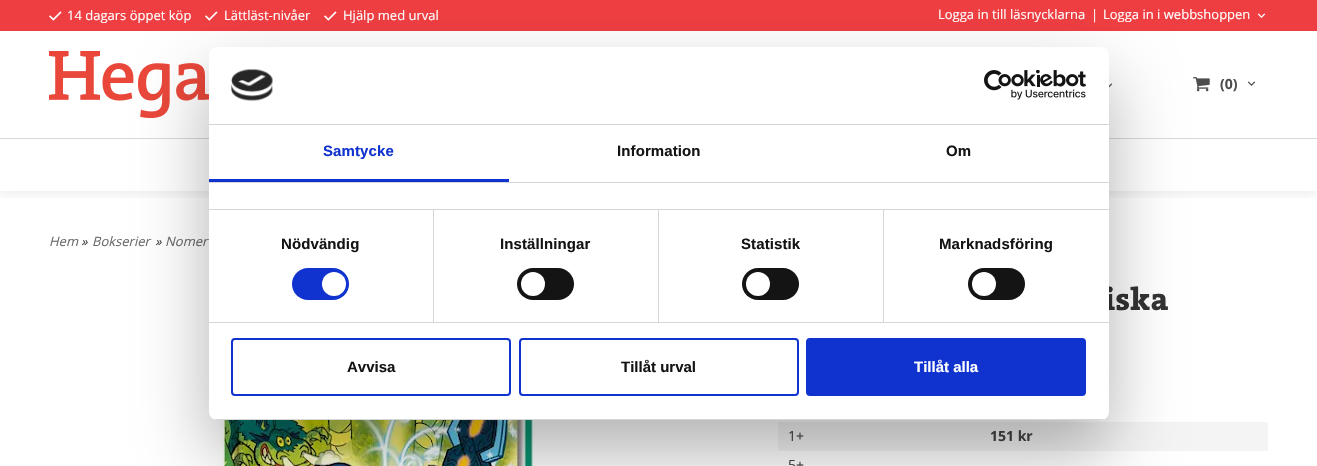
void draw(SkCanvas* canvas) {
	SkPaint paint;
	paint.setAntiAlias(true);
	auto spacedText = [&](const char* s, float x, float y, const SkFont& font, const SkPaint& ink, float letter, float word) {
		std::vector<SkGlyphID> glyphs(font.countText(s, strlen(s), SkTextEncoding::kUTF8));
		std::vector<float> xs(glyphs.size());
		font.textToGlyphs(s, strlen(s), SkTextEncoding::kUTF8, glyphs);
		font.getXPos(glyphs, xs, x);
		float extra = 0;
		for (size_t i = 0; i < glyphs.size(); i++) {
			xs[i] += extra;
			extra += letter + word * (glyphs[i] == font.unicharToGlyph(' '));
		}
		canvas->drawTextBlob(SkTextBlob::MakeFromPosHGlyphs(glyphs, xs, y, font), 0, 0, ink);
	};
	auto svgPath = [&](const char* data, bool evenOdd = false) {
		SkPath result = *SkParsePath::FromSVGString(data);
		if (evenOdd) result.setFillType(SkPathFillType::kEvenOdd);
		return result;
	};
	canvas->clear(0xffffffff);
	canvas->save();
	canvas->clipRect(SkRect::MakeXYWH(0, 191, 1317, 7));
	paint.setColor(0x1a000000);
	paint.setMaskFilter(SkMaskFilter::MakeBlur(kNormal_SkBlurStyle, 8));
	canvas->drawRect(SkRect::MakeXYWH(0, 0, 1317, 191), paint);
	paint.setMaskFilter(nullptr);
	canvas->restore();
	paint.setColor(0xffef3e42);
	canvas->drawRect(SkRect::MakeXYWH(0, 0, 1317, 31), paint);
	canvas->drawImageRect(SkImages::DeferredFromEncodedData(SkData::MakeFromFileName("img1.png")), SkRect::MakeXYWH(49, 11, 13, 10), SkSamplingOptions());
	SkFont f1(fontMgr->matchFamilyStyle("Open Sans", SkFontStyle::Normal()), 13);
	f1.setSubpixel(true);
	paint.setColor(0xffffffff);
	canvas->drawString("14 dagars öppet köp", 67, 20, f1, paint);
	canvas->drawImageRect(SkImages::DeferredFromEncodedData(SkData::MakeFromFileName("img1.png")), SkRect::MakeXYWH(205, 11, 13, 10), SkSamplingOptions());
	canvas->drawString("Lättläst-nivåer", 224, 20, f1, paint);
	canvas->drawImageRect(SkImages::DeferredFromEncodedData(SkData::MakeFromFileName("img1.png")), SkRect::MakeXYWH(324, 11, 13, 10), SkSamplingOptions());
	canvas->drawString("Hjälp med urval", 343, 20, f1, paint);
	canvas->drawString("Logga in till läsnycklarna", 938, 19, f1, paint);
	canvas->drawString("|", 1091, 19, f1, paint);
	canvas->drawString("Logga in i webbshoppen", 1103, 19, f1, paint);
	canvas->drawImageRect(SkImages::DeferredFromEncodedData(SkData::MakeFromFileName("img2.png")), SkRect::MakeXYWH(1257, 13, 9, 5), SkSamplingOptions());
	paint.setColor(0xffd9d9d9);
	canvas->drawRect(SkRect::MakeXYWH(0, 138, 1317, 1), paint);
	canvas->drawImageRect(SkImages::DeferredFromEncodedData(SkData::MakeFromFileName("img3.png")), SkRect::MakeXYWH(49, 51, 160, 67), SkSamplingOptions());
	canvas->drawImageRect(SkImages::DeferredFromEncodedData(SkData::MakeFromFileName("img4.png")), SkRect::MakeXYWH(1109, 83, 4, 5), SkSamplingOptions());
	canvas->drawImageRect(SkImages::DeferredFromEncodedData(SkData::MakeFromFileName("img5.png")), SkRect::MakeXYWH(1193, 77, 17, 15), SkSamplingOptions());
	SkFont f2(fontMgr->matchFamilyStyle("Open Sans", SkFontStyle::Bold()), 14);
	f2.setSubpixel(true);
	paint.setColor(0xff4d4d4d);
	canvas->drawString("(0)", 1220, 89, f2, paint);
	canvas->drawImageRect(SkImages::DeferredFromEncodedData(SkData::MakeFromFileName("img6.png")), SkRect::MakeXYWH(1247, 81, 9, 5), SkSamplingOptions());
	SkFont f3(fontMgr->matchFamilyStyle("Open Sans", SkFontStyle::Italic()), 13);
	f3.setSubpixel(true);
	paint.setColor(0xff6a6a6a);
	canvas->drawString("Hem", 49, 246, f3, paint);
	paint.setColor(0xff444444);
	canvas->drawString("»", 81, 246, f3, paint);
	paint.setColor(0xff6a6a6a);
	canvas->drawString("Bokserier", 92, 246, f3, paint);
	paint.setColor(0xff444444);
	canvas->drawString("»", 155, 246, f3, paint);
	paint.setColor(0xff6a6a6a);
	canvas->drawString("Nomer", 165, 246, f3, paint);
	canvas->drawImageRect(SkImages::DeferredFromEncodedData(SkData::MakeFromFileName("img7.png")), SkRect::MakeXYWH(218, 420, 320, 46), SkSamplingOptions());
	SkFont f4(fontMgr->matchFamilyStyle("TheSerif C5", SkFontStyle(800, SkFontStyle::kNormal_Width, SkFontStyle::kUpright_Slant)), 32);
	f4.setSubpixel(true);
	paint.setColor(0xff333333);
	spacedText("iska", 1104, 310, f4, paint, 0.5, 0);
	paint.setColor(0xfff4f4f4);
	canvas->drawRect(SkRect::MakeXYWH(778, 422, 490, 29), paint);
	SkFont f5(fontMgr->matchFamilyStyle("Open Sans", SkFontStyle::Normal()), 14);
	f5.setSubpixel(true);
	paint.setColor(0xff444444);
	canvas->drawString("1+", 788, 441, f5, paint);
	canvas->drawString("151 kr", 990, 441, f2, paint);
	canvas->drawString("5+", 788, 470, f5, paint);
	paint.setColor(0x4d000000);
	paint.setMaskFilter(SkMaskFilter::MakeBlur(kNormal_SkBlurStyle, 34));
	canvas->drawRoundRect(SkRect::MakeXYWH(209, 79, 900, 373), 8, 8, paint);
	paint.setMaskFilter(nullptr);
	paint.setColor(0xffffffff);
	canvas->drawRoundRect(SkRect::MakeXYWH(209, 47, 900, 373), 8, 8, paint);
	paint.setColor(0xffd6d6d6);
	canvas->drawRect(SkRect::MakeXYWH(209, 124, 900, 1), paint);
	canvas->drawImageRect(SkImages::DeferredFromEncodedData(SkData::MakeFromFileName("img8.png")), SkRect::MakeXYWH(231, 69, 42, 32), SkSamplingOptions());
	canvas->drawImageRect(SkImages::DeferredFromEncodedData(SkData::MakeFromFileName("img9.png")), SkRect::MakeXYWH(984, 70, 102, 30), SkSamplingOptions());
	canvas->drawRect(SkRect::MakeXYWH(209, 182, 900, 1), paint);
	paint.setColor(0xff1032cf);
	canvas->drawRect(SkRect::MakeXYWH(209, 179, 300, 3), paint);
	SkFont f6(fontMgr->matchFamilyStyle("Liberation Sans", SkFontStyle::Bold()), 15);
	f6.setSubpixel(true);
	spacedText("Samtycke", 323, 156, f6, paint, 0.1, 0);
	paint.setColor(0xff141414);
	spacedText("Information", 617, 156, f6, paint, 0.1, 0);
	spacedText("Om", 946, 156, f6, paint, 0.1, 0);
	paint.setColor(0xffd6d6d6);
	canvas->drawRect(SkRect::MakeXYWH(209, 209, 900, 1), paint);
	canvas->drawRect(SkRect::MakeXYWH(209, 322, 900, 1), paint);
	canvas->drawRect(SkRect::MakeXYWH(433, 210, 1, 112), paint);
	paint.setColor(0xff141414);
	spacedText("Nödvändig", 281, 249, f6, paint, 0.1, 0);
	paint.setColor(0xff1032cf);
	canvas->drawRoundRect(SkRect::MakeXYWH(292, 268, 57, 32), 16, 16, paint);
	paint.setColor(0xffffffff);
	canvas->drawCircle(334, 284, 12, paint);
	paint.setColor(0xffd6d6d6);
	canvas->drawRect(SkRect::MakeXYWH(658, 210, 1, 112), paint);
	paint.setColor(0xff141414);
	spacedText("Inställningar", 500, 249, f6, paint, 0.1, 0);
	canvas->drawRoundRect(SkRect::MakeXYWH(517, 268, 57, 32), 16, 16, paint);
	paint.setColor(0xffffffff);
	canvas->drawCircle(533, 284, 12, paint);
	paint.setColor(0xffd6d6d6);
	canvas->drawRect(SkRect::MakeXYWH(883, 210, 1, 112), paint);
	paint.setColor(0xff141414);
	spacedText("Statistik", 741, 249, f6, paint, 0.1, 0);
	canvas->drawRoundRect(SkRect::MakeXYWH(742, 268, 57, 32), 16, 16, paint);
	paint.setColor(0xffffffff);
	canvas->drawCircle(758, 284, 12, paint);
	paint.setColor(0xff141414);
	spacedText("Marknadsföring", 939, 249, f6, paint, 0.1, 0);
	canvas->drawRoundRect(SkRect::MakeXYWH(968, 268, 57, 32), 16, 16, paint);
	paint.setColor(0xffffffff);
	canvas->drawCircle(984, 284, 12, paint);
	canvas->save();
	canvas->clipPath(svgPath("M217 47H1101C1105.5 47 1109 50.5 1109 55V412C1109 416.5 1105.5 420 1101 420H217C212.5 420 209 416.5 209 412V55C209 50.5 212.5 47 217 47Z"), true);
	paint.setColor(0xffd6d6d6);
	canvas->drawRect(SkRect::MakeXYWH(209, 419, 900, 1), paint);
	canvas->restore();
	paint.setStroke(true);
	paint.setStrokeWidth(2);
	paint.setColor(0xff1032cf);
	canvas->drawRoundRect(SkRect::MakeXYWH(232, 339, 278, 56), 3, 3, paint);
	paint.setStroke(false);
	paint.setColor(0xff141414);
	canvas->drawString("Avvisa", 347, 372, f6, paint);
	paint.setStroke(true);
	paint.setColor(0xff1032cf);
	canvas->drawRoundRect(SkRect::MakeXYWH(520, 339, 278, 56), 3, 3, paint);
	paint.setStroke(false);
	paint.setColor(0xff141414);
	canvas->drawString("Tillåt urval", 621, 372, f6, paint);
	paint.setColor(0xff1032cf);
	canvas->drawRoundRect(SkRect::MakeXYWH(807, 339, 278, 56), 3, 3, paint);
	paint.setStroke(true);
	canvas->drawRoundRect(SkRect::MakeXYWH(807, 339, 278, 56), 3, 3, paint);
	paint.setStroke(false);
	paint.setColor(0xffffffff);
	canvas->drawString("Tillåt alla", 914, 372, f6, paint);
}
